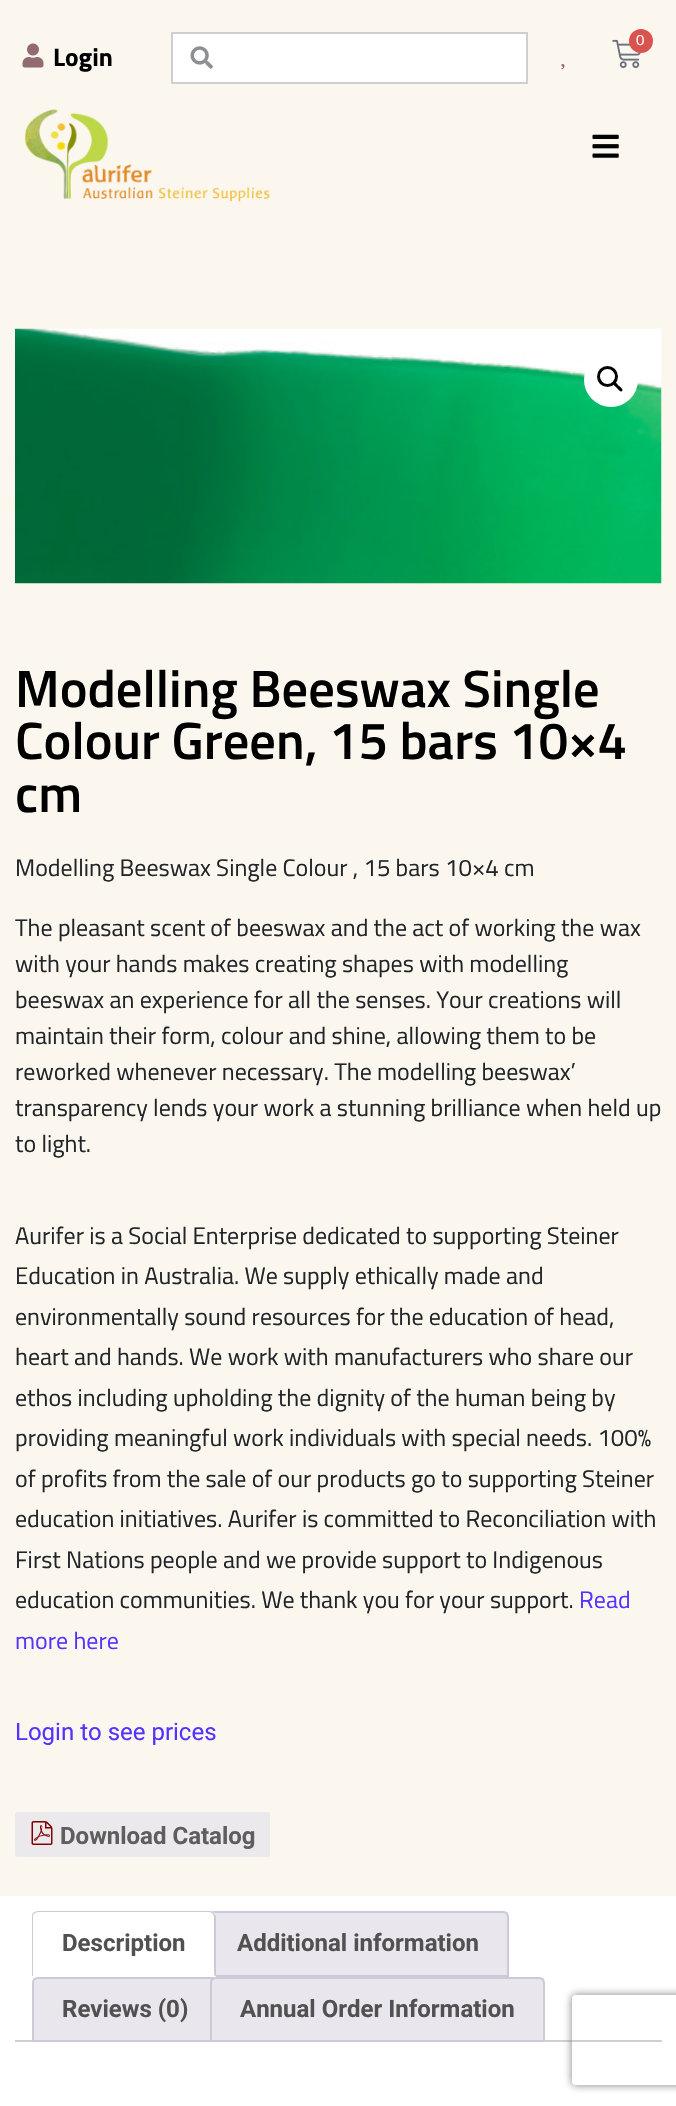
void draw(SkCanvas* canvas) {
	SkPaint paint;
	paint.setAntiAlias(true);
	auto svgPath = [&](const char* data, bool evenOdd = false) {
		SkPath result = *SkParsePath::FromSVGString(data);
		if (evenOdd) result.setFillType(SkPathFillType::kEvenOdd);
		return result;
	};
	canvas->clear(0xffffffff);
	paint.setColor(0xfffbf7ef);
	canvas->drawRect(SkRect::MakeXYWH(0, 0, 676, 1896), paint);
	paint.setColor(0xffffffff);
	canvas->drawRect(SkRect::MakeXYWH(172, 33, 355, 50), paint);
	paint.setStroke(true);
	paint.setStrokeWidth(2);
	paint.setColor(0xffcfcfcf);
	canvas->drawRect(SkRect::MakeXYWH(172, 33, 355, 50), paint);
	canvas->drawImageRect(SkImages::DeferredFromEncodedData(SkData::MakeFromFileName("img1.png")), SkRect::MakeXYWH(190, 46, 23, 23), SkSamplingOptions());
	canvas->drawImageRect(SkImages::DeferredFromEncodedData(SkData::MakeFromFileName("img2.png")), SkRect::MakeXYWH(612, 39, 29, 30), SkSamplingOptions());
	paint.setStroke(false);
	paint.setColor(0xffd9534f);
	canvas->drawCircle(641, 41, 12, paint);
	SkFont f1(fontMgr->matchFamilyStyle("Titillium Web", SkFontStyle::Normal()), 15);
	f1.setSubpixel(true);
	paint.setColor(0xffffffff);
	canvas->drawString("0", 636, 45, f1, paint);
	canvas->drawImageRect(SkImages::DeferredFromEncodedData(SkData::MakeFromFileName("img3.png")), SkRect::MakeXYWH(22, 43, 22, 25), SkSamplingOptions());
	SkFont f2(fontMgr->matchFamilyStyle("Titillium Web", SkFontStyle::Bold()), 25.5);
	f2.setSubpixel(true);
	paint.setColor(0xff000000);
	canvas->drawString("Login", 53, 66, f2, paint);
	canvas->drawImageRect(SkImages::DeferredFromEncodedData(SkData::MakeFromFileName("img4.png")), SkRect::MakeXYWH(561, 64, 4, 6), SkSamplingOptions());
	canvas->drawImageRect(SkImages::DeferredFromEncodedData(SkData::MakeFromFileName("img5.png")), SkRect::MakeXYWH(24, 109, 246, 93), SkSamplingOptions());
	canvas->drawImageRect(SkImages::DeferredFromEncodedData(SkData::MakeFromFileName("img6.png")), SkRect::MakeXYWH(592, 134, 27, 24), SkSamplingOptions());
	canvas->drawImageRect(SkImages::DeferredFromEncodedData(SkData::MakeFromFileName("img7.png")), SkRect::MakeXYWH(15, 328, 647, 256), SkSamplingOptions());
	paint.setColor(0xffffffff);
	canvas->drawCircle(611, 380, 27, paint);
	paint.setStroke(true);
	paint.setStrokeWidth(3);
	paint.setColor(0xff000000);
	canvas->drawCircle(607.5, 376.5, 9, paint);
	paint.setStroke(false);
	canvas->drawPath(svgPath("M614 382.5C615.5 381 618 385 619 386C620 386.5 624 389.5 622 391C620.5 393 618 389 617 388C616 387 612 384.5 614 382.5Z"), paint);
	SkFont f3(fontMgr->matchFamilyStyle("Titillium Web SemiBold", SkFontStyle(600, SkFontStyle::kNormal_Width, SkFontStyle::kUpright_Slant)), 52.5);
	f3.setSubpixel(true);
	canvas->drawString("Modelling Beeswax Single", 15, 707, f3, paint);
	canvas->drawString("Colour Green, 15 bars 10×4", 15, 759, f3, paint);
	canvas->drawString("cm", 15, 812, f3, paint);
	SkFont f4(fontMgr->matchFamilyStyle("Titillium Web", SkFontStyle::Normal()), 24);
	f4.setSubpixel(true);
	paint.setColor(0xff212529);
	canvas->drawString("Modelling Beeswax Single Colour , 15 bars 10×4 cm", 15, 876, f4, paint);
	canvas->drawString("The pleasant scent of beeswax and the act of working the wax", 15, 936, f4, paint);
	canvas->drawString("with your hands makes creating shapes with modelling", 15, 972, f4, paint);
	canvas->drawString("beeswax an experience for all the senses. Your creations will", 15, 1008, f4, paint);
	canvas->drawString("maintain their form, colour and shine, allowing them to be", 15, 1044, f4, paint);
	canvas->drawString("reworked whenever necessary. The modelling beeswax’", 15, 1080, f4, paint);
	canvas->drawString("transparency lends your work a stunning brilliance when held up", 15, 1116, f4, paint);
	canvas->drawString("to light.", 15, 1152, f4, paint);
	canvas->drawString("Aurifer is a Social Enterprise dedicated to supporting Steiner", 15, 1244, f4, paint);
	canvas->drawString("Education in Australia. We supply ethically made and", 15, 1284, f4, paint);
	canvas->drawString("environmentally sound resources for the education of head,", 15, 1325, f4, paint);
	canvas->drawString("heart and hands. We work with manufacturers who share our", 15, 1365, f4, paint);
	canvas->drawString("ethos including upholding the dignity of the human being by", 15, 1406, f4, paint);
	canvas->drawString("providing meaningful work individuals with special needs. 100%", 15, 1446, f4, paint);
	canvas->drawString("of profits from the sale of our products go to supporting Steiner", 15, 1487, f4, paint);
	canvas->drawString("education initiatives. Aurifer is committed to Reconciliation with", 15, 1527, f4, paint);
	canvas->drawString("First Nations people and we provide support to Indigenous", 15, 1568, f4, paint);
	canvas->drawString("education communities. We thank you for your support.", 15, 1608, f4, paint);
	paint.setColor(0xff5533ff);
	canvas->drawString("Read", 579, 1608, f4, paint);
	canvas->drawString("more here", 15, 1649, f4, paint);
	SkFont f5(fontMgr->matchFamilyStyle("Roboto", SkFontStyle::Normal()), 24);
	f5.setSubpixel(true);
	canvas->drawString("Login to see prices", 15, 1740, f5, paint);
	paint.setColor(0xffebe9eb);
	canvas->drawRoundRect(SkRect::MakeXYWH(15, 1812, 255, 45), 3, 3, paint);
	canvas->drawImageRect(SkImages::DeferredFromEncodedData(SkData::MakeFromFileName("img8.png")), SkRect::MakeXYWH(31, 1821, 22, 24), SkSamplingOptions());
	SkFont f6(fontMgr->matchFamilyStyle("Roboto", SkFontStyle::Bold()), 24);
	f6.setSubpixel(true);
	paint.setColor(0xff5e5e5e);
	canvas->drawString("Download Catalog", 60, 1844, f6, paint);
	paint.setColor(0xffe9e6ed);
	canvas->drawPath(svgPath("M213 1912H503C506 1912 508 1914 508 1917V1976H208V1917C208 1914 210 1912 213 1912Z"), paint);
	paint.setStroke(true);
	paint.setStrokeWidth(2);
	paint.setColor(0xffcfc8d8);
	canvas->drawPath(svgPath("M213 1912H503C506 1912 508 1914 508 1917V1976H208V1917C208 1914 210 1912 213 1912Z"), paint);
	paint.setStroke(false);
	paint.setColor(0xffffffff);
	canvas->drawPath(svgPath("M38 1911H210C213.5 1911 216 1913.5 216 1917V1977H32V1917C32 1913.5 34.5 1911 38 1911Z"), paint);
	paint.setColor(0xffcfc8d8);
	canvas->drawPath(svgPath("M38 1911C36 1911 34 1912 33 1913L34 1914L35 1913L38 1912H210L213 1914L214 1913C213 1912 212 1911 210 1911Z"), paint);
	canvas->drawPath(svgPath("M216 1977V1917C216 1916 215 1914 214 1913L213 1914L214 1917V1975Z"), paint);
	paint.setColor(0xffffffff);
	canvas->drawPath(svgPath("M216 1977L214 1975V1976H33L32 1977Z"), paint);
	paint.setColor(0xffcfc8d8);
	canvas->drawPath(svgPath("M33 1913C32 1914 32 1916 32 1917V1976H33V1917C33 1916 33 1915 34 1914Z"), paint);
	paint.setColor(0xff515151);
	canvas->drawString("Description", 62, 1951, f6, paint);
	canvas->drawString("Additional information", 237, 1951, f6, paint);
	paint.setColor(0xffd3ced2);
	canvas->drawRect(SkRect::MakeXYWH(15, 2040, 647, 2), paint);
	paint.setColor(0xffe9e6ed);
	canvas->drawPath(svgPath("M38 1978H213C216 1978 218 1980 218 1983V2041H33V1983C33 1980 35 1978 38 1978Z"), paint);
	paint.setStroke(true);
	paint.setColor(0xffcfc8d8);
	canvas->drawPath(svgPath("M38 1978H213C216 1978 218 1980 218 1983V2041H33V1983C33 1980 35 1978 38 1978Z"), paint);
	paint.setStroke(false);
	paint.setColor(0xff515151);
	canvas->drawString("Reviews (0)", 62, 2017, f6, paint);
	paint.setColor(0xffe9e6ed);
	canvas->drawPath(svgPath("M216 1978H539C542 1978 544 1980 544 1983V2041H211V1983C211 1980 213 1978 216 1978Z"), paint);
	paint.setStroke(true);
	paint.setColor(0xffcfc8d8);
	canvas->drawPath(svgPath("M216 1978H539C542 1978 544 1980 544 1983V2041H211V1983C211 1980 213 1978 216 1978Z"), paint);
	paint.setStroke(false);
	paint.setColor(0xff515151);
	canvas->drawString("Annual Order Information", 240, 2017, f6, paint);
	canvas->save();
	canvas->clipPath(svgPath("M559 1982H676V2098H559ZM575 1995H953C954.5 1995 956 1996.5 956 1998V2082C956 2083.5 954.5 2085 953 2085H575C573.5 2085 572 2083.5 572 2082V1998C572 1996.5 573.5 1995 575 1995Z", true), true);
	paint.setColor(0xff808080);
	paint.setMaskFilter(SkMaskFilter::MakeBlur(kNormal_SkBlurStyle, 4));
	canvas->drawRoundRect(SkRect::MakeXYWH(572, 1995, 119, 90), 3, 3, paint);
	paint.setMaskFilter(nullptr);
	canvas->restore();
}
